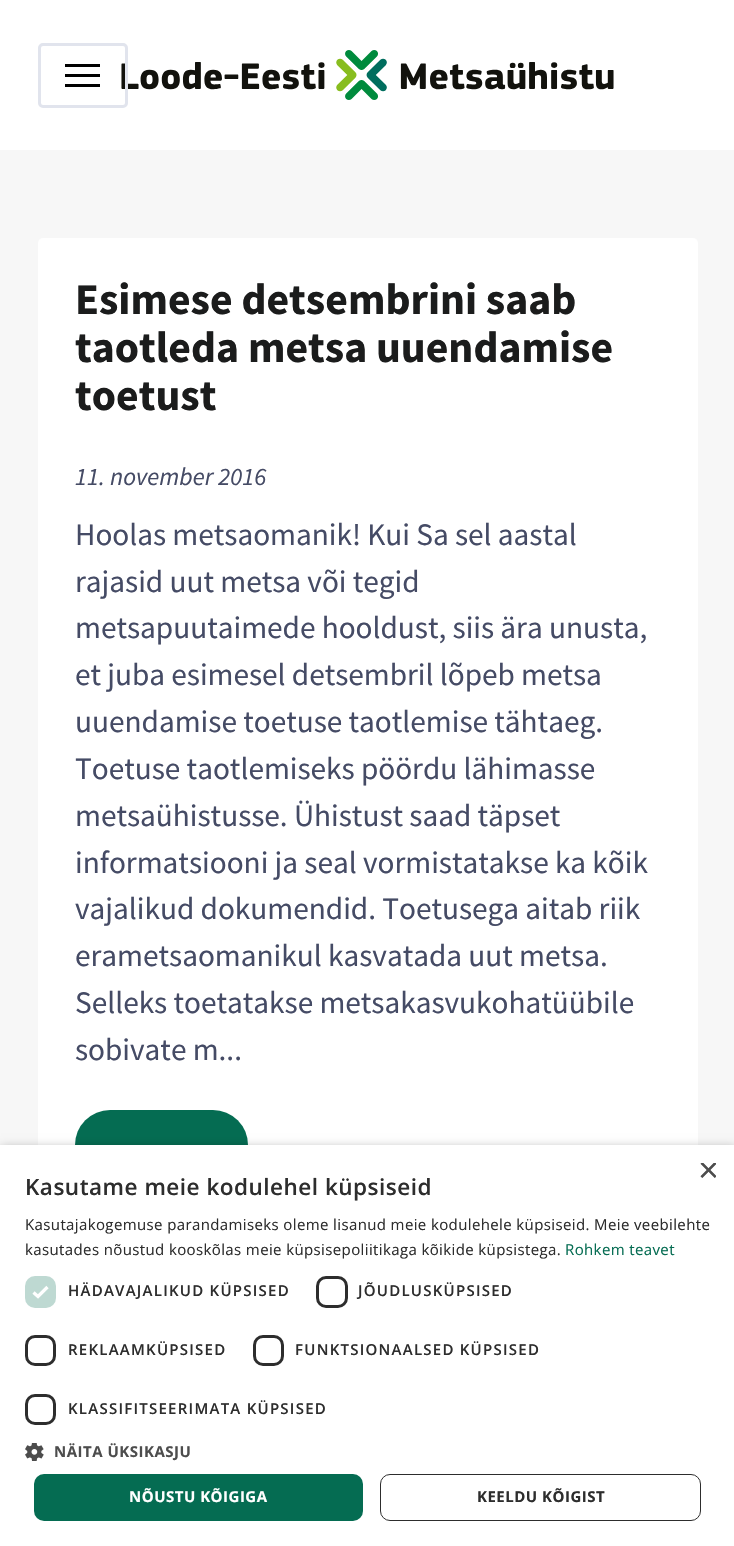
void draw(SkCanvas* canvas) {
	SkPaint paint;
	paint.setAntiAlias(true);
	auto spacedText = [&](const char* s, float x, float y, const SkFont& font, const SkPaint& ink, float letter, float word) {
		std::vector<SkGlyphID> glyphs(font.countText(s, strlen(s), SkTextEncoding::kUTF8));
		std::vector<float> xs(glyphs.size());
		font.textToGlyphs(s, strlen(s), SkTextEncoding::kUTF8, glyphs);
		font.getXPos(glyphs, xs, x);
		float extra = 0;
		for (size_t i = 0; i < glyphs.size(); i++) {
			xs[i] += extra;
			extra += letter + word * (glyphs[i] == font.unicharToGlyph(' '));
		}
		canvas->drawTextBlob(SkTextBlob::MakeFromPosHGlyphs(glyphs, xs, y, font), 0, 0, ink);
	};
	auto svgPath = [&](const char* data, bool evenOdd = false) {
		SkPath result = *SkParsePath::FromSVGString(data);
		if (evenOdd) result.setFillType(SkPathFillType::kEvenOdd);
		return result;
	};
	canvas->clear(0xfff7f7f7);
	paint.setColor(0xffffffff);
	canvas->drawRect(SkRect::MakeXYWH(0, 0, 734, 150), paint);
	canvas->drawImageRect(SkImages::DeferredFromEncodedData(SkData::MakeFromFileName("img1.png")), SkRect::MakeXYWH(121, 50, 493, 50), SkSamplingOptions());
	paint.setStroke(true);
	paint.setStrokeWidth(3);
	paint.setColor(0xffe1e4ed);
	canvas->drawRoundRect(SkRect::MakeXYWH(39.5, 44.5, 87, 62), 3.5, 3.5, paint);
	paint.setStroke(false);
	paint.setColor(0xff000000);
	canvas->drawRect(SkRect::MakeXYWH(65, 74, 35, 3), paint);
	canvas->drawRect(SkRect::MakeXYWH(65, 64, 35, 3), paint);
	canvas->drawRect(SkRect::MakeXYWH(65, 84, 35, 3), paint);
	paint.setColor(0xffffffff);
	canvas->drawRoundRect(SkRect::MakeXYWH(38, 238, 660, 998), 5, 5, paint);
	SkFont f1(fontMgr->matchFamilyStyle("Source Sans Pro", SkFontStyle::Bold()), 43.75);
	f1.setSubpixel(true);
	paint.setColor(0xff1b1c1c);
	canvas->drawString("Esimese detsembrini saab", 75, 314, f1, paint);
	canvas->drawString("taotleda metsa uuendamise", 75, 362, f1, paint);
	canvas->drawString("toetust", 75, 410, f1, paint);
	SkFont f2(fontMgr->matchFamilyStyle("Source Sans Pro", SkFontStyle::Italic()), 25);
	f2.setSubpixel(true);
	paint.setColor(0xff454b65);
	canvas->drawString("11. november 2016", 75, 485, f2, paint);
	SkFont f3(fontMgr->matchFamilyStyle("Source Sans Pro", SkFontStyle::Normal()), 31.25);
	f3.setSubpixel(true);
	canvas->drawString("Hoolas metsaomanik! Kui Sa sel aastal", 75, 545, f3, paint);
	canvas->drawString("rajasid uut metsa või tegid", 75, 592, f3, paint);
	canvas->drawString("metsapuutaimede hooldust, siis ära unusta,", 75, 638, f3, paint);
	canvas->drawString("et juba esimesel detsembril lõpeb metsa", 75, 685, f3, paint);
	canvas->drawString("uuendamise toetuse taotlemise tähtaeg.", 75, 732, f3, paint);
	canvas->drawString("Toetuse taotlemiseks pöördu lähimasse", 75, 779, f3, paint);
	canvas->drawString("metsaühistusse. Ühistust saad täpset", 75, 826, f3, paint);
	canvas->drawString("informatsiooni ja seal vormistatakse ka kõik", 75, 873, f3, paint);
	canvas->drawString("vajalikud dokumendid. Toetusega aitab riik", 75, 919, f3, paint);
	canvas->drawString("erametsaomanikul kasvatada uut metsa.", 75, 966, f3, paint);
	canvas->drawString("Selleks toetatakse metsakasvukohatüübile", 75, 1013, f3, paint);
	canvas->drawString("sobivate m...", 75, 1060, f3, paint);
	paint.setColor(0xff056c52);
	canvas->drawRoundRect(SkRect::MakeXYWH(75, 1110, 173, 70), 35, 35, paint);
	paint.setColor(0x59000000);
	paint.setMaskFilter(SkMaskFilter::MakeBlur(kNormal_SkBlurStyle, 5));
	canvas->drawRect(SkRect::MakeXYWH(1, 1148, 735, 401), paint);
	paint.setMaskFilter(nullptr);
	paint.setColor(0xffffffff);
	canvas->drawRect(SkRect::MakeXYWH(0, 1145, 734, 401), paint);
	canvas->save();
	canvas->clipRect(SkRect::MakeXYWH(698, 1163, 18, 18));
	SkFont f4(fontMgr->matchFamilyStyle("Liberation Sans", SkFontStyle::Normal()), 36);
	f4.setSubpixel(true);
	paint.setColor(0xff4d4d4d);
	canvas->drawString("×", 698, 1182, f4, paint);
	canvas->restore();
	SkFont f5(fontMgr->matchFamilyStyle("Open Sans", SkFontStyle(600, SkFontStyle::kNormal_Width, SkFontStyle::kUpright_Slant)), 22.5);
	f5.setSubpixel(true);
	paint.setColor(0xff2d2d2d);
	spacedText("Kasutame meie kodulehel küpsiseid", 25, 1195, f5, paint, 0.5, 0);
	SkFont f6(fontMgr->matchFamilyStyle("Open Sans", SkFontStyle::Normal()), 15);
	f6.setSubpixel(true);
	spacedText("Kasutajakogemuse parandamiseks oleme lisanud meie kodulehele küpsiseid. Meie veebilehte", 25, 1230, f6, paint, 0.38, 0);
	spacedText("kasutades nõustud kooskõlas meie küpsisepoliitikaga kõikide küpsistega.", 25, 1255, f6, paint, 0.38, 0);
	paint.setColor(0xff056c52);
	spacedText("Rohkem teavet", 565, 1255, f6, paint, 0.38, 0);
	paint.setColor(0xffbed9d2);
	canvas->drawRoundRect(SkRect::MakeXYWH(25, 1276, 31, 32), 10, 10, paint);
	paint.setStroke(true);
	paint.setStrokeWidth(3.3);
	paint.setColor(0xffffffff);
	canvas->drawPath(svgPath("M33.5 1292.5L38 1296.5L47.5 1287"), paint);
	SkFont f7(fontMgr->matchFamilyStyle("Open Sans", SkFontStyle(600, SkFontStyle::kNormal_Width, SkFontStyle::kUpright_Slant)), 15);
	f7.setSubpixel(true);
	paint.setStroke(false);
	paint.setColor(0xff2d2d2d);
	spacedText("HÄDAVAJALIKUD KÜPSISED", 68, 1296, f7, paint, 1.25, 0);
	paint.setStroke(true);
	paint.setStrokeWidth(3);
	canvas->drawRoundRect(SkRect::MakeXYWH(317.5, 1277.5, 29, 29), 8.5, 8.5, paint);
	paint.setStroke(false);
	spacedText("JÕUDLUSKÜPSISED", 358, 1296, f7, paint, 1.25, 0);
	paint.setStroke(true);
	canvas->drawRoundRect(SkRect::MakeXYWH(26.5, 1336.5, 28, 28), 8.5, 8.5, paint);
	paint.setStroke(false);
	spacedText("REKLAAMKÜPSISED", 68, 1355, f7, paint, 1.25, 0);
	paint.setStroke(true);
	canvas->drawRoundRect(SkRect::MakeXYWH(254.5, 1336.5, 28, 28), 8.5, 8.5, paint);
	paint.setStroke(false);
	spacedText("FUNKTSIONAALSED KÜPSISED", 295, 1355, f7, paint, 1.25, 0);
	paint.setStroke(true);
	canvas->drawRoundRect(SkRect::MakeXYWH(26.5, 1395.5, 28, 28), 8.5, 8.5, paint);
	paint.setStroke(false);
	spacedText("KLASSIFITSEERIMATA KÜPSISED", 68, 1414, f7, paint, 1.25, 0);
	canvas->drawImageRect(SkImages::DeferredFromEncodedData(SkData::MakeFromFileName("img2.png")), SkRect::MakeXYWH(25, 1443, 19, 18), SkSamplingOptions());
	SkFont f8(fontMgr->matchFamilyStyle("Open Sans", SkFontStyle::Bold()), 15);
	f8.setSubpixel(true);
	paint.setColor(0xff4d4d4d);
	spacedText("NÄITA ÜKSIKASJU", 54, 1457, f8, paint, 0.5, 0);
	paint.setColor(0xff056c52);
	canvas->drawRoundRect(SkRect::MakeXYWH(34, 1474, 329, 47), 10, 10, paint);
	paint.setColor(0xffffffff);
	spacedText("NÕUSTU KÕIGIGA", 129, 1502, f8, paint, 0.5, 0);
	paint.setStroke(true);
	paint.setStrokeWidth(1);
	paint.setColor(0xff2d2d2d);
	canvas->drawRoundRect(SkRect::MakeXYWH(380.5, 1474.5, 320, 46), 9.5, 9.5, paint);
	paint.setStroke(false);
	spacedText("KEELDU KÕIGIST", 477, 1502, f8, paint, 0.5, 0);
}
